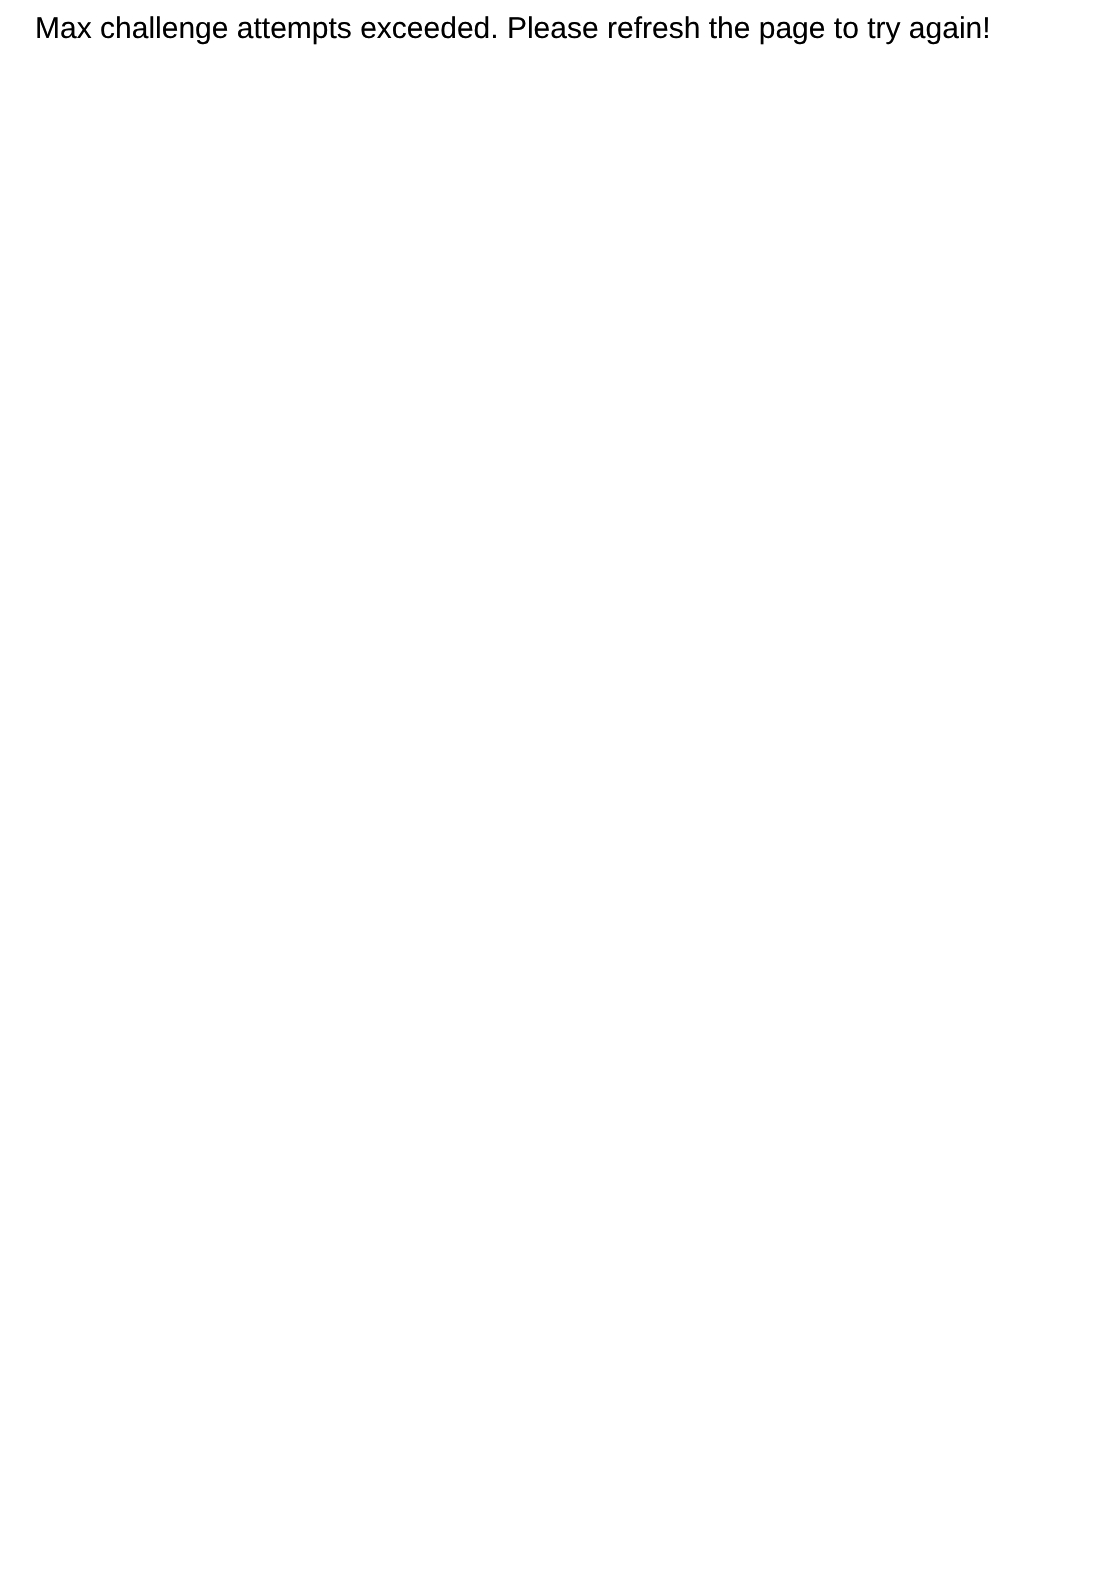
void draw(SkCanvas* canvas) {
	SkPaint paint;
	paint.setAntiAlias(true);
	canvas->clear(0xffffffff);
	SkFont f1(fontMgr->matchFamilyStyle("Liberation Sans", SkFontStyle::Normal()), 30);
	f1.setSubpixel(true);
	paint.setColor(0xff000000);
	canvas->drawString("Max challenge attempts exceeded. Please refresh the page to try again!", 35, 38, f1, paint);
}
